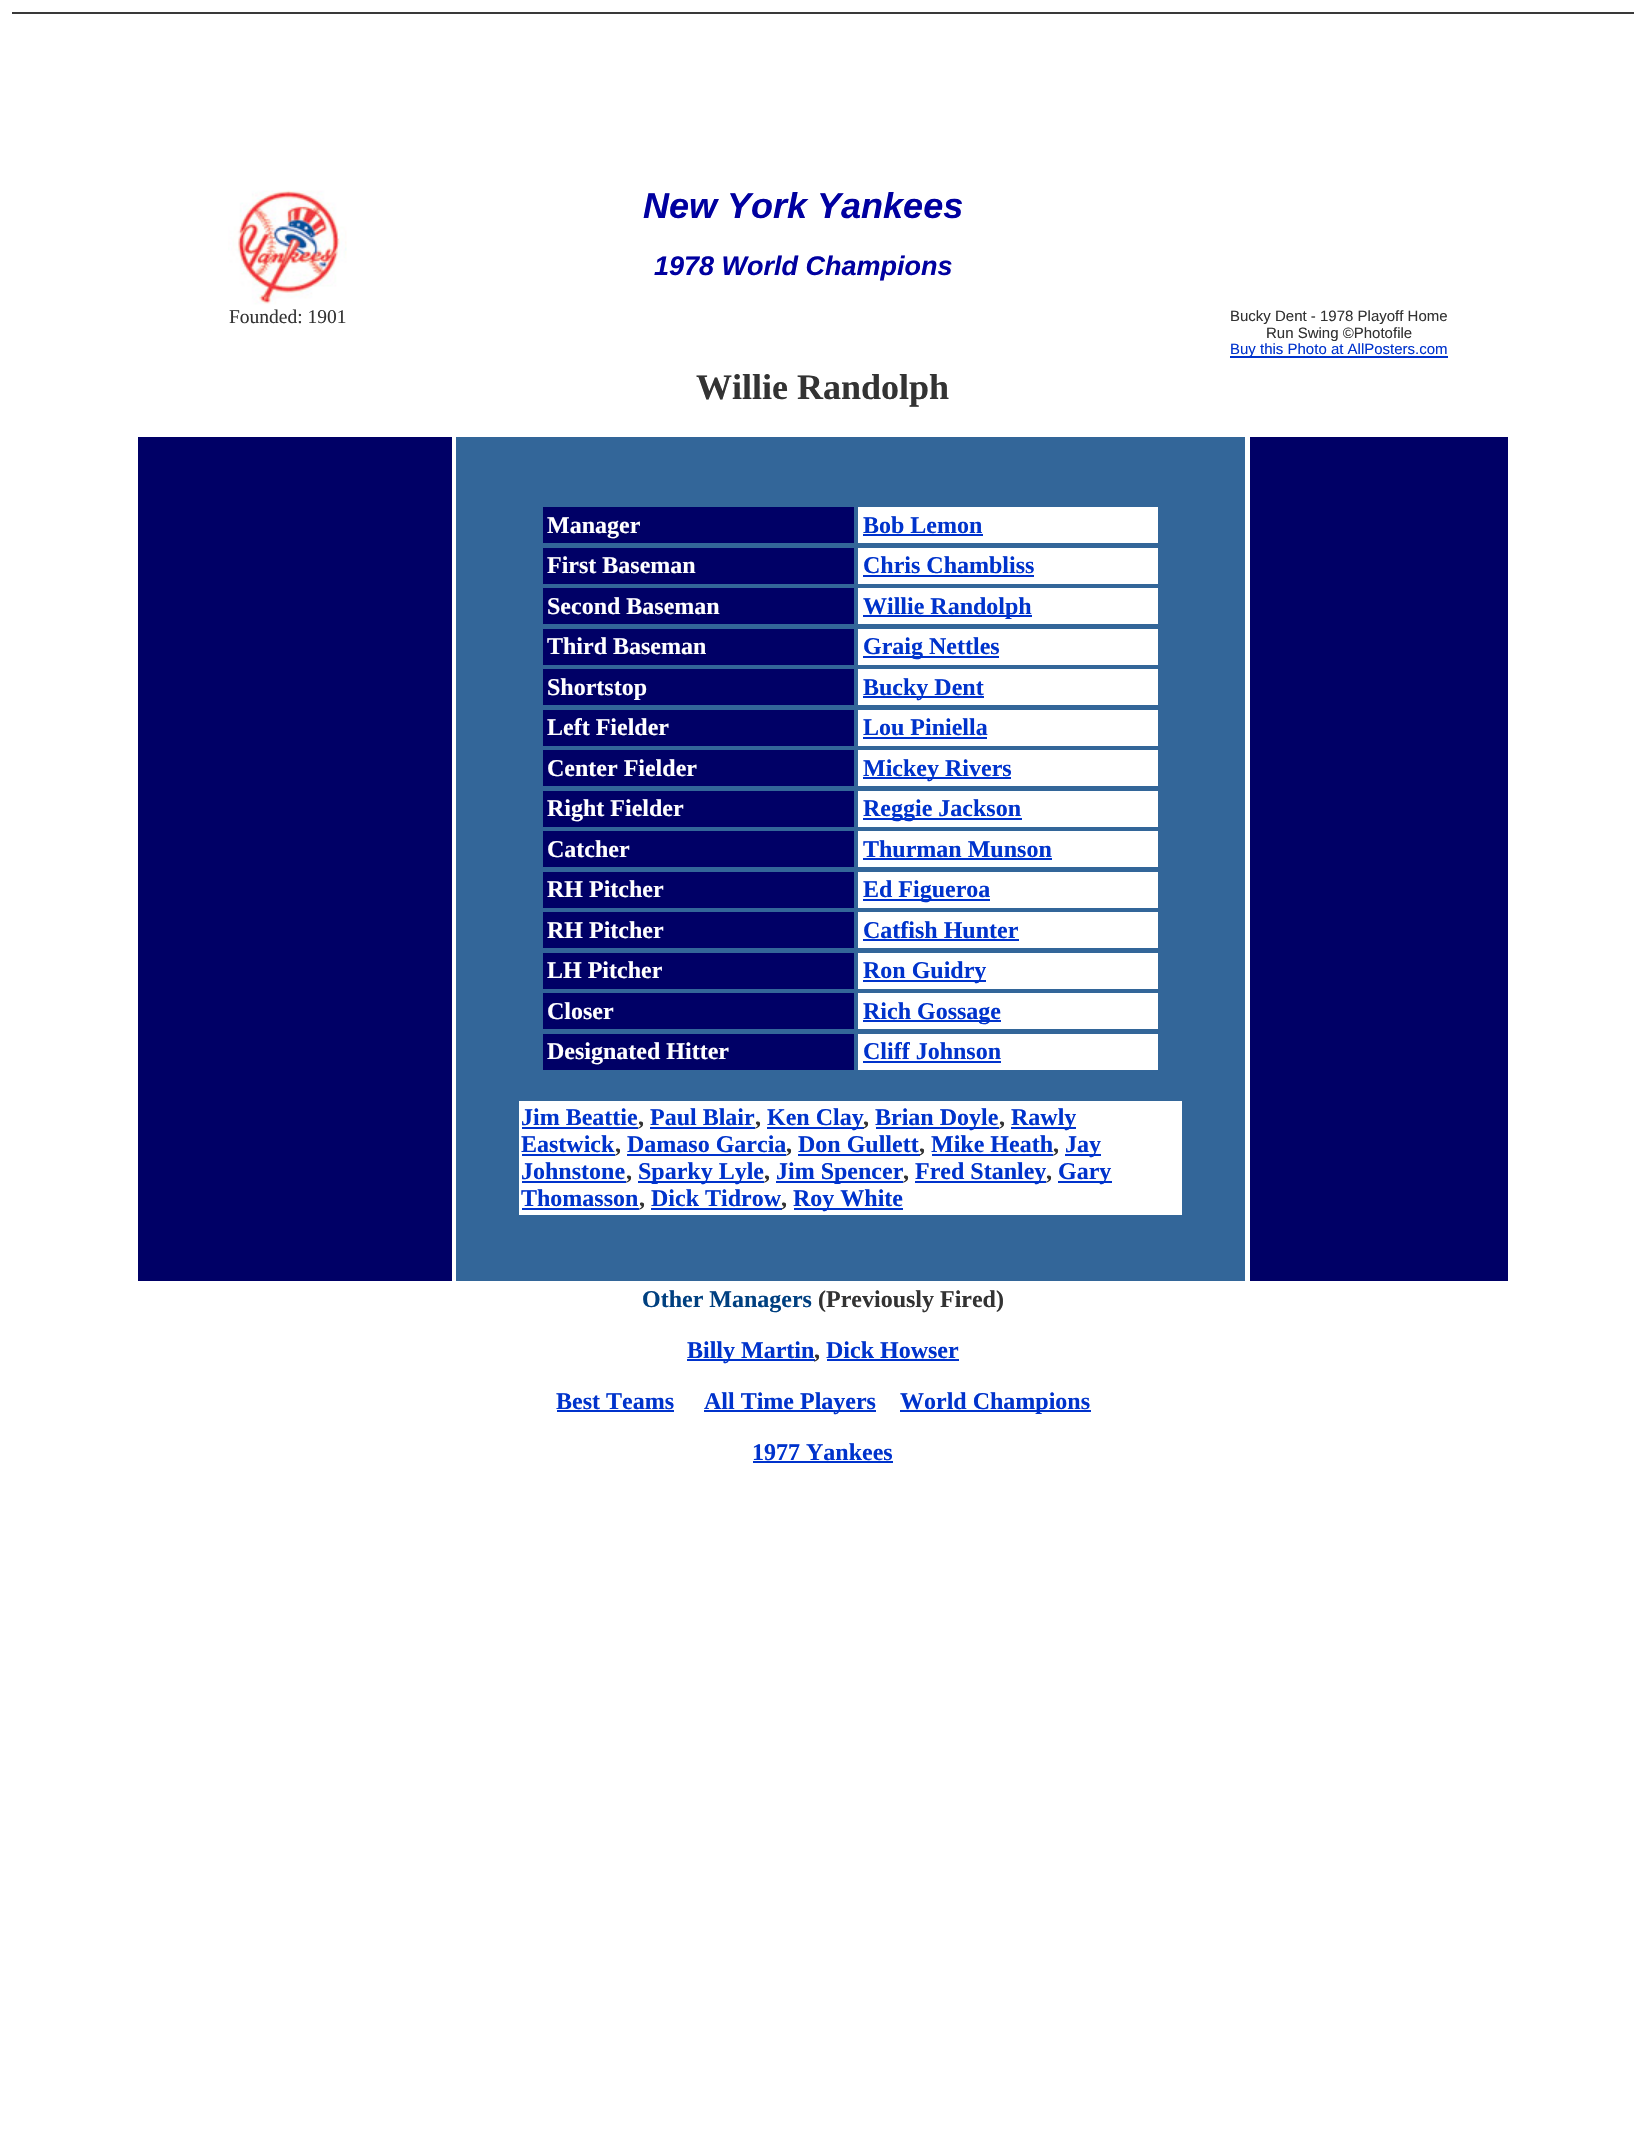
void draw(SkCanvas* canvas) {
	SkPaint paint;
	paint.setAntiAlias(true);
	canvas->clear(0xffffffff);
	paint.setColor(0xff393939);
	canvas->drawRect(SkRect::MakeXYWH(12, 12, 1622, 2), paint);
	SkFont f1(fontMgr->matchFamilyStyle("Liberation Sans", SkFontStyle::BoldItalic()), 36);
	f1.setSubpixel(true);
	paint.setColor(0xff0000a0);
	canvas->drawString("New York Yankees", 643, 218, f1, paint);
	SkFont f2(fontMgr->matchFamilyStyle("Liberation Sans", SkFontStyle::BoldItalic()), 27);
	f2.setSubpixel(true);
	canvas->drawString("1978 World Champions", 654, 275, f2, paint);
	canvas->drawImageRect(SkImages::DeferredFromEncodedData(SkData::MakeFromFileName("img1.png")), SkRect::MakeXYWH(228, 190, 119, 115), SkSamplingOptions());
	SkFont f3(fontMgr->matchFamilyStyle("Liberation Serif", SkFontStyle::Normal()), 19.5);
	f3.setSubpixel(true);
	paint.setColor(0xff333333);
	canvas->drawString("Founded: 1901", 229, 323, f3, paint);
	SkFont f4(fontMgr->matchFamilyStyle("Liberation Sans", SkFontStyle::Normal()), 15);
	f4.setSubpixel(true);
	canvas->drawString("Bucky Dent - 1978 Playoff Home", 1230, 321, f4, paint);
	canvas->drawString("Run Swing ©Photofile", 1266, 338, f4, paint);
	paint.setColor(0xff0033cc);
	canvas->drawRect(SkRect::MakeXYWH(1230, 356, 218, 2), paint);
	canvas->drawString("Buy this Photo at AllPosters.com", 1230, 354, f4, paint);
	SkFont f5(fontMgr->matchFamilyStyle("Liberation Serif", SkFontStyle::Bold()), 36);
	f5.setSubpixel(true);
	paint.setColor(0xff333333);
	canvas->drawString("Willie Randolph", 696, 399, f5, paint);
	paint.setColor(0xff000066);
	canvas->drawRect(SkRect::MakeXYWH(138, 437, 314, 844), paint);
	paint.setColor(0xff336699);
	canvas->drawRect(SkRect::MakeXYWH(456, 437, 789, 844), paint);
	paint.setColor(0xff000066);
	canvas->drawRect(SkRect::MakeXYWH(543, 507, 311, 36), paint);
	SkFont f6(fontMgr->matchFamilyStyle("Liberation Serif", SkFontStyle::Bold()), 24);
	f6.setSubpixel(true);
	paint.setColor(0xffffffff);
	canvas->drawString("Manager", 547, 533, f6, paint);
	canvas->drawRect(SkRect::MakeXYWH(858, 507, 300, 36), paint);
	paint.setColor(0xff0033cc);
	canvas->drawString("Bob Lemon", 863, 533, f6, paint);
	canvas->drawRect(SkRect::MakeXYWH(863, 534, 120, 2), paint);
	paint.setColor(0xff000066);
	canvas->drawRect(SkRect::MakeXYWH(543, 548, 311, 36), paint);
	paint.setColor(0xffffffff);
	canvas->drawString("First Baseman", 547, 573, f6, paint);
	canvas->drawRect(SkRect::MakeXYWH(858, 548, 300, 36), paint);
	paint.setColor(0xff0033cc);
	canvas->drawString("Chris Chambliss", 863, 573, f6, paint);
	canvas->drawRect(SkRect::MakeXYWH(863, 575, 171, 2), paint);
	paint.setColor(0xff000066);
	canvas->drawRect(SkRect::MakeXYWH(543, 588, 311, 36), paint);
	paint.setColor(0xffffffff);
	canvas->drawString("Second Baseman", 547, 614, f6, paint);
	canvas->drawRect(SkRect::MakeXYWH(858, 588, 300, 36), paint);
	paint.setColor(0xff0033cc);
	canvas->drawRect(SkRect::MakeXYWH(863, 615, 169, 2), paint);
	canvas->drawString("Willie Randolph", 863, 614, f6, paint);
	paint.setColor(0xff000066);
	canvas->drawRect(SkRect::MakeXYWH(543, 629, 311, 36), paint);
	paint.setColor(0xffffffff);
	canvas->drawString("Third Baseman", 547, 654, f6, paint);
	canvas->drawRect(SkRect::MakeXYWH(858, 629, 300, 36), paint);
	paint.setColor(0xff0033cc);
	canvas->drawRect(SkRect::MakeXYWH(863, 656, 136, 2), paint);
	canvas->drawString("Graig Nettles", 863, 654, f6, paint);
	paint.setColor(0xff000066);
	canvas->drawRect(SkRect::MakeXYWH(543, 669, 311, 36), paint);
	paint.setColor(0xffffffff);
	canvas->drawString("Shortstop", 547, 695, f6, paint);
	canvas->drawRect(SkRect::MakeXYWH(858, 669, 300, 36), paint);
	paint.setColor(0xff0033cc);
	canvas->drawRect(SkRect::MakeXYWH(863, 696, 121, 2), paint);
	canvas->drawString("Bucky Dent", 863, 695, f6, paint);
	paint.setColor(0xff000066);
	canvas->drawRect(SkRect::MakeXYWH(543, 710, 311, 36), paint);
	paint.setColor(0xffffffff);
	canvas->drawString("Left Fielder", 547, 735, f6, paint);
	canvas->drawRect(SkRect::MakeXYWH(858, 710, 300, 36), paint);
	paint.setColor(0xff0033cc);
	canvas->drawString("Lou Piniella", 863, 735, f6, paint);
	canvas->drawRect(SkRect::MakeXYWH(863, 737, 124, 2), paint);
	paint.setColor(0xff000066);
	canvas->drawRect(SkRect::MakeXYWH(543, 750, 311, 36), paint);
	paint.setColor(0xffffffff);
	canvas->drawString("Center Fielder", 547, 776, f6, paint);
	canvas->drawRect(SkRect::MakeXYWH(858, 750, 300, 36), paint);
	paint.setColor(0xff0033cc);
	canvas->drawRect(SkRect::MakeXYWH(863, 777, 148, 2), paint);
	canvas->drawString("Mickey Rivers", 863, 776, f6, paint);
	paint.setColor(0xff000066);
	canvas->drawRect(SkRect::MakeXYWH(543, 791, 311, 36), paint);
	paint.setColor(0xffffffff);
	canvas->drawString("Right Fielder", 547, 816, f6, paint);
	canvas->drawRect(SkRect::MakeXYWH(858, 791, 300, 36), paint);
	paint.setColor(0xff0033cc);
	canvas->drawRect(SkRect::MakeXYWH(863, 818, 159, 2), paint);
	canvas->drawString("Reggie Jackson", 863, 816, f6, paint);
	paint.setColor(0xff000066);
	canvas->drawRect(SkRect::MakeXYWH(543, 831, 311, 36), paint);
	paint.setColor(0xffffffff);
	canvas->drawString("Catcher", 547, 857, f6, paint);
	canvas->drawRect(SkRect::MakeXYWH(858, 831, 300, 36), paint);
	paint.setColor(0xff0033cc);
	canvas->drawString("Thurman Munson", 863, 857, f6, paint);
	canvas->drawRect(SkRect::MakeXYWH(863, 858, 189, 2), paint);
	paint.setColor(0xff000066);
	canvas->drawRect(SkRect::MakeXYWH(543, 872, 311, 36), paint);
	paint.setColor(0xffffffff);
	canvas->drawString("RH Pitcher", 547, 897, f6, paint);
	canvas->drawRect(SkRect::MakeXYWH(858, 872, 300, 36), paint);
	paint.setColor(0xff0033cc);
	canvas->drawRect(SkRect::MakeXYWH(863, 899, 127, 2), paint);
	canvas->drawString("Ed Figueroa", 863, 897, f6, paint);
	paint.setColor(0xff000066);
	canvas->drawRect(SkRect::MakeXYWH(543, 912, 311, 36), paint);
	paint.setColor(0xffffffff);
	canvas->drawString("RH Pitcher", 547, 938, f6, paint);
	canvas->drawRect(SkRect::MakeXYWH(858, 912, 300, 36), paint);
	paint.setColor(0xff0033cc);
	canvas->drawString("Catfish Hunter", 863, 938, f6, paint);
	canvas->drawRect(SkRect::MakeXYWH(863, 939, 156, 2), paint);
	paint.setColor(0xff000066);
	canvas->drawRect(SkRect::MakeXYWH(543, 953, 311, 36), paint);
	paint.setColor(0xffffffff);
	canvas->drawString("LH Pitcher", 547, 978, f6, paint);
	canvas->drawRect(SkRect::MakeXYWH(858, 953, 300, 36), paint);
	paint.setColor(0xff0033cc);
	canvas->drawRect(SkRect::MakeXYWH(863, 980, 123, 2), paint);
	canvas->drawString("Ron Guidry", 863, 978, f6, paint);
	paint.setColor(0xff000066);
	canvas->drawRect(SkRect::MakeXYWH(543, 993, 311, 36), paint);
	paint.setColor(0xffffffff);
	canvas->drawString("Closer", 547, 1019, f6, paint);
	canvas->drawRect(SkRect::MakeXYWH(858, 993, 300, 36), paint);
	paint.setColor(0xff0033cc);
	canvas->drawRect(SkRect::MakeXYWH(863, 1020, 138, 2), paint);
	canvas->drawString("Rich Gossage", 863, 1019, f6, paint);
	paint.setColor(0xff000066);
	canvas->drawRect(SkRect::MakeXYWH(543, 1034, 311, 36), paint);
	paint.setColor(0xffffffff);
	canvas->drawString("Designated Hitter", 547, 1059, f6, paint);
	canvas->drawRect(SkRect::MakeXYWH(858, 1034, 300, 36), paint);
	paint.setColor(0xff0033cc);
	canvas->drawString("Cliff Johnson", 863, 1059, f6, paint);
	canvas->drawRect(SkRect::MakeXYWH(863, 1061, 138, 2), paint);
	paint.setColor(0xffffffff);
	canvas->drawRect(SkRect::MakeXYWH(519, 1101, 663, 114), paint);
	paint.setColor(0xff0033cc);
	canvas->drawString("Jim Beattie", 521, 1125, f6, paint);
	canvas->drawRect(SkRect::MakeXYWH(522, 1127, 116, 2), paint);
	paint.setColor(0xff333333);
	canvas->drawString(",", 638, 1125, f6, paint);
	paint.setColor(0xff0033cc);
	canvas->drawString("Paul Blair", 650, 1125, f6, paint);
	paint.setColor(0xff333333);
	canvas->drawString(",", 755, 1125, f6, paint);
	paint.setColor(0xff0033cc);
	canvas->drawRect(SkRect::MakeXYWH(650, 1127, 105, 2), paint);
	canvas->drawRect(SkRect::MakeXYWH(767, 1127, 97, 2), paint);
	canvas->drawString("Ken Clay", 767, 1125, f6, paint);
	paint.setColor(0xff333333);
	canvas->drawString(",", 863, 1125, f6, paint);
	paint.setColor(0xff0033cc);
	canvas->drawRect(SkRect::MakeXYWH(876, 1127, 123, 2), paint);
	canvas->drawString("Brian Doyle", 875, 1125, f6, paint);
	paint.setColor(0xff333333);
	canvas->drawString(",", 999, 1125, f6, paint);
	paint.setColor(0xff0033cc);
	canvas->drawRect(SkRect::MakeXYWH(1011, 1127, 65, 2), paint);
	canvas->drawString("Rawly", 1011, 1125, f6, paint);
	canvas->drawString("Eastwick", 521, 1152, f6, paint);
	paint.setColor(0xff333333);
	canvas->drawString(",", 615, 1152, f6, paint);
	paint.setColor(0xff0033cc);
	canvas->drawRect(SkRect::MakeXYWH(522, 1154, 93, 2), paint);
	canvas->drawString("Damaso Garcia", 627, 1152, f6, paint);
	paint.setColor(0xff333333);
	canvas->drawString(",", 786, 1152, f6, paint);
	paint.setColor(0xff0033cc);
	canvas->drawRect(SkRect::MakeXYWH(627, 1154, 159, 2), paint);
	canvas->drawString("Don Gullett", 798, 1152, f6, paint);
	canvas->drawRect(SkRect::MakeXYWH(798, 1154, 122, 2), paint);
	paint.setColor(0xff333333);
	canvas->drawString(",", 919, 1152, f6, paint);
	paint.setColor(0xff0033cc);
	canvas->drawString("Mike Heath", 931, 1152, f6, paint);
	paint.setColor(0xff333333);
	canvas->drawString(",", 1053, 1152, f6, paint);
	paint.setColor(0xff0033cc);
	canvas->drawRect(SkRect::MakeXYWH(932, 1154, 121, 2), paint);
	canvas->drawRect(SkRect::MakeXYWH(1065, 1154, 36, 2), paint);
	canvas->drawString("Jay", 1065, 1152, f6, paint);
	canvas->drawString("Johnstone", 521, 1179, f6, paint);
	canvas->drawRect(SkRect::MakeXYWH(522, 1181, 104, 2), paint);
	paint.setColor(0xff333333);
	canvas->drawString(",", 626, 1179, f6, paint);
	paint.setColor(0xff0033cc);
	canvas->drawRect(SkRect::MakeXYWH(638, 1181, 126, 2), paint);
	canvas->drawString("Sparky Lyle", 638, 1179, f6, paint);
	paint.setColor(0xff333333);
	canvas->drawString(",", 764, 1179, f6, paint);
	paint.setColor(0xff0033cc);
	canvas->drawRect(SkRect::MakeXYWH(776, 1181, 127, 2), paint);
	canvas->drawString("Jim Spencer", 776, 1179, f6, paint);
	paint.setColor(0xff333333);
	canvas->drawString(",", 903, 1179, f6, paint);
	paint.setColor(0xff0033cc);
	canvas->drawRect(SkRect::MakeXYWH(915, 1181, 131, 2), paint);
	canvas->drawString("Fred Stanley", 915, 1179, f6, paint);
	paint.setColor(0xff333333);
	canvas->drawString(",", 1046, 1179, f6, paint);
	paint.setColor(0xff0033cc);
	canvas->drawRect(SkRect::MakeXYWH(1058, 1181, 54, 2), paint);
	canvas->drawString("Gary", 1058, 1179, f6, paint);
	canvas->drawString("Thomasson", 521, 1206, f6, paint);
	paint.setColor(0xff333333);
	canvas->drawString(",", 639, 1206, f6, paint);
	paint.setColor(0xff0033cc);
	canvas->drawRect(SkRect::MakeXYWH(522, 1208, 117, 2), paint);
	canvas->drawString("Dick Tidrow", 651, 1206, f6, paint);
	canvas->drawRect(SkRect::MakeXYWH(651, 1208, 131, 2), paint);
	paint.setColor(0xff333333);
	canvas->drawString(",", 781, 1206, f6, paint);
	paint.setColor(0xff0033cc);
	canvas->drawRect(SkRect::MakeXYWH(794, 1208, 109, 2), paint);
	canvas->drawString("Roy White", 793, 1206, f6, paint);
	paint.setColor(0xff000066);
	canvas->drawRect(SkRect::MakeXYWH(1250, 437, 258, 844), paint);
	paint.setColor(0xff004080);
	canvas->drawString("Other Managers", 642, 1307, f6, paint);
	paint.setColor(0xff333333);
	canvas->drawString("(Previously Fired)", 818, 1307, f6, paint);
	paint.setColor(0xff0033cc);
	canvas->drawRect(SkRect::MakeXYWH(687, 1359, 128, 2), paint);
	canvas->drawString("Billy Martin", 687, 1358, f6, paint);
	paint.setColor(0xff333333);
	canvas->drawString(",", 814, 1358, f6, paint);
	paint.setColor(0xff0033cc);
	canvas->drawRect(SkRect::MakeXYWH(827, 1359, 132, 2), paint);
	canvas->drawString("Dick Howser", 826, 1358, f6, paint);
	canvas->drawString("Best Teams", 556, 1409, f6, paint);
	canvas->drawRect(SkRect::MakeXYWH(557, 1410, 117, 2), paint);
	canvas->drawRect(SkRect::MakeXYWH(704, 1410, 172, 2), paint);
	canvas->drawString("All Time Players", 704, 1409, f6, paint);
	canvas->drawRect(SkRect::MakeXYWH(900, 1410, 191, 2), paint);
	canvas->drawString("World Champions", 900, 1409, f6, paint);
	canvas->drawString("1977 Yankees", 752, 1460, f6, paint);
	canvas->drawRect(SkRect::MakeXYWH(753, 1461, 140, 2), paint);
}
